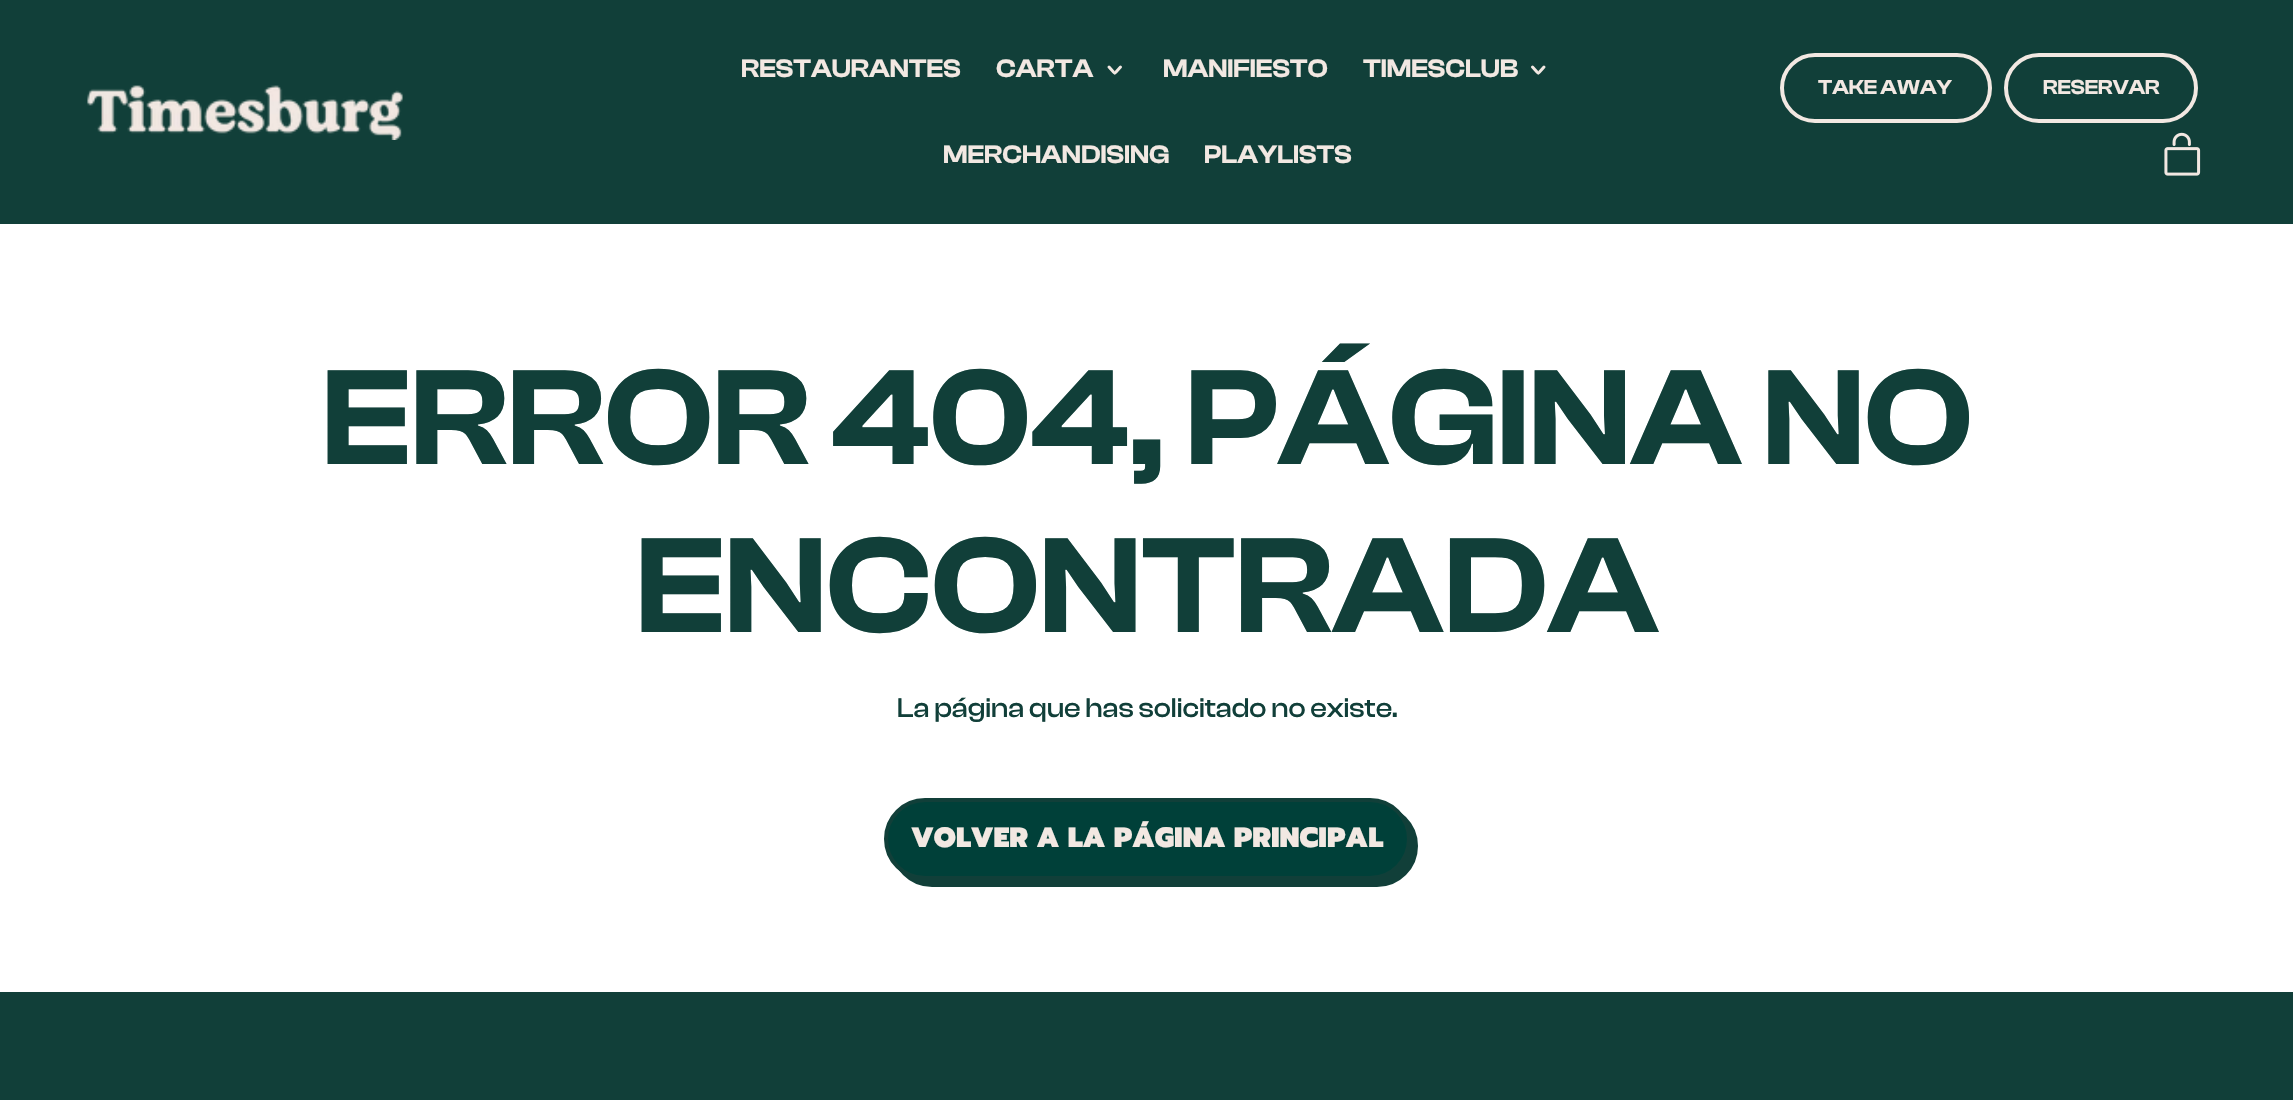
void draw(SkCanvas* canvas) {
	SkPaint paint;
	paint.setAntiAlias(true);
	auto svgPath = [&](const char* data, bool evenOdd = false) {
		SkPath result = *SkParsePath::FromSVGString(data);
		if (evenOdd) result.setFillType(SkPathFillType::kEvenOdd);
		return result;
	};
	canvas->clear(0xffffffff);
	paint.setColor(0xff113f39);
	canvas->drawRect(SkRect::MakeXYWH(0, 0, 2293, 224), paint);
	canvas->drawImageRect(SkImages::DeferredFromEncodedData(SkData::MakeFromFileName("img1.png")), SkRect::MakeXYWH(87, 85, 316, 55), SkSamplingOptions());
	SkFont f1(fontMgr->matchFamilyStyle("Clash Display", SkFontStyle(600, SkFontStyle::kNormal_Width, SkFontStyle::kUpright_Slant)), 26.25);
	f1.setSubpixel(true);
	paint.setColor(0xfff2e8e2);
	canvas->drawString("RESTAURANTES", 741, 77, f1, paint);
	canvas->drawString("CARTA", 996, 77, f1, paint);
	paint.setStroke(true);
	paint.setStrokeWidth(3);
	paint.setStrokeCap(SkPaint::kRound_Cap);
	paint.setStrokeJoin(SkPaint::kRound_Join);
	canvas->drawPath(svgPath("M1109 67L1113.5 72C1115 73.5 1114.5 73.5 1116 72L1120.5 67"), paint);
	paint.setStroke(false);
	canvas->drawString("MANIFIESTO", 1163, 77, f1, paint);
	canvas->drawString("TIMESCLUB", 1363, 77, f1, paint);
	paint.setStroke(true);
	canvas->drawPath(svgPath("M1532.5 67L1537 72C1538.5 73.5 1538 73.5 1539.5 72L1544 67"), paint);
	paint.setStroke(false);
	canvas->drawString("MERCHANDISING", 943, 163, f1, paint);
	canvas->drawString("PLAYLISTS", 1204, 163, f1, paint);
	paint.setStroke(true);
	paint.setStrokeWidth(4);
	paint.setStrokeCap(SkPaint::kButt_Cap);
	paint.setStrokeJoin(SkPaint::kMiter_Join);
	canvas->drawRoundRect(SkRect::MakeXYWH(1782, 55, 208, 66), 33, 33, paint);
	SkFont f2(fontMgr->matchFamilyStyle("Clash Display", SkFontStyle(600, SkFontStyle::kNormal_Width, SkFontStyle::kUpright_Slant)), 21);
	f2.setSubpixel(true);
	paint.setStroke(false);
	canvas->drawString("TAKE AWAY", 1818, 94, f2, paint);
	paint.setStroke(true);
	canvas->drawRoundRect(SkRect::MakeXYWH(2006, 55, 190, 66), 33, 33, paint);
	paint.setStroke(false);
	canvas->drawString("RESERVAR", 2043, 94, f2, paint);
	canvas->drawImageRect(SkImages::DeferredFromEncodedData(SkData::MakeFromFileName("img2.png")), SkRect::MakeXYWH(2164, 132, 37, 44), SkSamplingOptions());
	SkFont f3(fontMgr->matchFamilyStyle("Clash Display", SkFontStyle(600, SkFontStyle::kNormal_Width, SkFontStyle::kUpright_Slant)), 139.9);
	f3.setSubpixel(true);
	paint.setColor(0xff113f39);
	canvas->drawString("ERROR 404, PÁGINA NO", 322, 464, f3, paint);
	canvas->drawString("ENCONTRADA", 636, 632, f3, paint);
	SkFont f4(fontMgr->matchFamilyStyle("Clash Display", SkFontStyle(500, SkFontStyle::kNormal_Width, SkFontStyle::kUpright_Slant)), 28);
	f4.setSubpixel(true);
	canvas->drawString("La página que has solicitado no existe.", 897, 717, f4, paint);
	canvas->drawRoundRect(SkRect::MakeXYWH(893, 807, 523, 78), 39, 39, paint);
	paint.setStroke(true);
	canvas->drawRoundRect(SkRect::MakeXYWH(893, 807, 523, 78), 39, 39, paint);
	paint.setStroke(false);
	paint.setColor(0xff004039);
	canvas->drawRoundRect(SkRect::MakeXYWH(886, 800, 523, 78), 39, 39, paint);
	paint.setStroke(true);
	paint.setColor(0xff113f39);
	canvas->drawRoundRect(SkRect::MakeXYWH(886, 800, 523, 78), 39, 39, paint);
	SkFont f5(fontMgr->matchFamilyStyle("Prompt", SkFontStyle(900, SkFontStyle::kNormal_Width, SkFontStyle::kUpright_Slant)), 28);
	f5.setSubpixel(true);
	paint.setStroke(false);
	paint.setColor(0xfff2e8e2);
	canvas->drawString("VOLVER A LA PÁGINA PRINCIPAL", 911, 847, f5, paint);
	paint.setColor(0xff113f39);
	canvas->drawRect(SkRect::MakeXYWH(0, 992, 2293, 108), paint);
}
